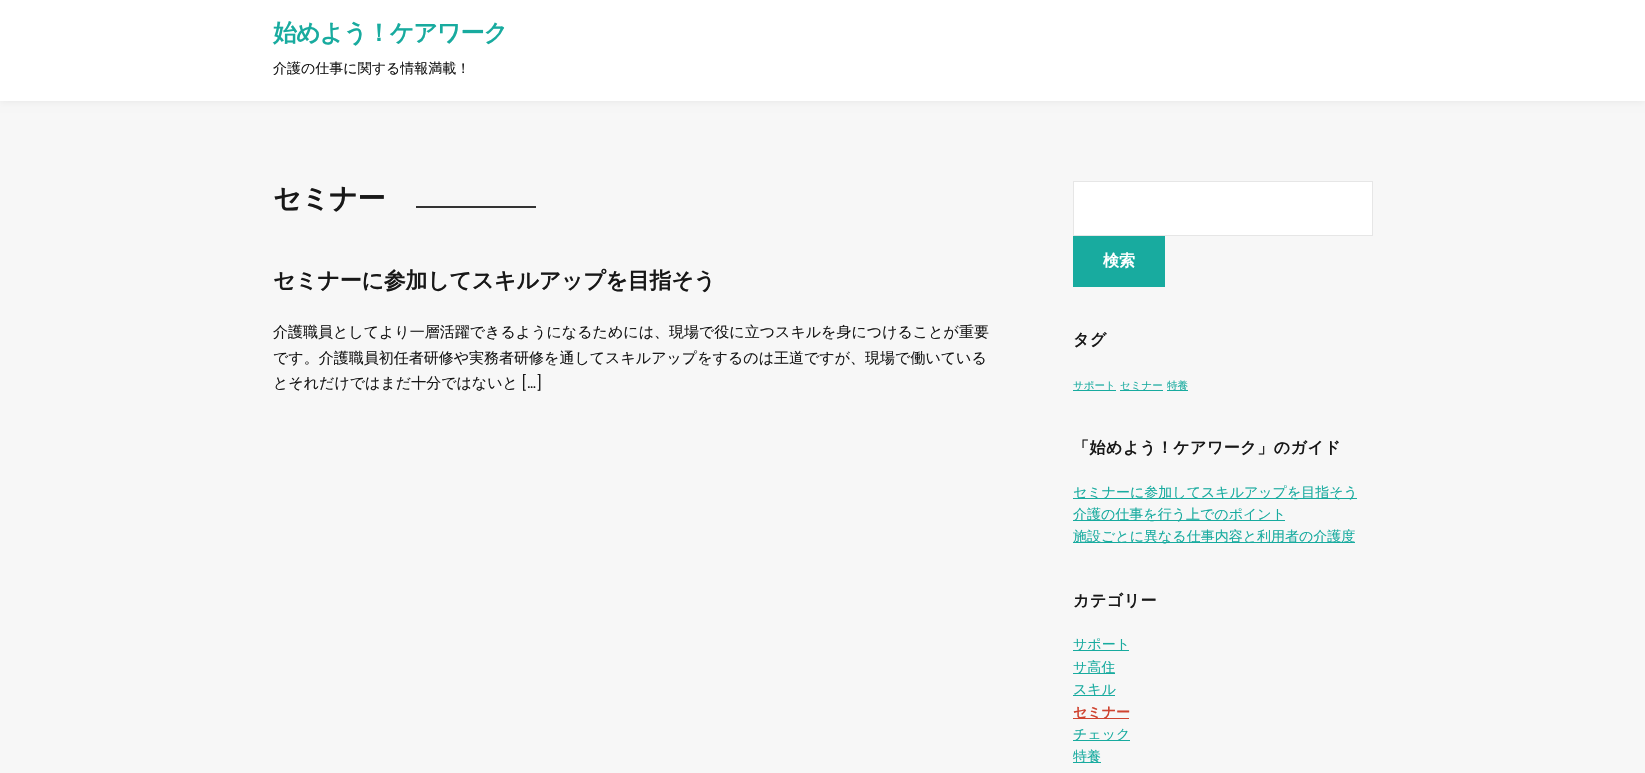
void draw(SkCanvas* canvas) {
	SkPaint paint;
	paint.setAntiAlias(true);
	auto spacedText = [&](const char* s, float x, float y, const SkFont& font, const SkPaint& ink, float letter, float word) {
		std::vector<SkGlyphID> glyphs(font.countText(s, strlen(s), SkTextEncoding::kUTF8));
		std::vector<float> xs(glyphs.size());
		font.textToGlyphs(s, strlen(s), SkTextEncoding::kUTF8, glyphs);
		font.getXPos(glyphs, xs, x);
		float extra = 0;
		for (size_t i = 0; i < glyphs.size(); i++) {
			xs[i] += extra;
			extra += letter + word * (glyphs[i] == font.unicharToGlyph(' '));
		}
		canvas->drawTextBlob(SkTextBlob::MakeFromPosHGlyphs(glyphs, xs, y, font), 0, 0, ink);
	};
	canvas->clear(0xfff7f7f7);
	paint.setColor(0x12000000);
	paint.setMaskFilter(SkMaskFilter::MakeBlur(kNormal_SkBlurStyle, 4));
	canvas->drawRect(SkRect::MakeXYWH(0, 0, 1645, 101), paint);
	paint.setMaskFilter(nullptr);
	paint.setColor(0xffffffff);
	canvas->drawRect(SkRect::MakeXYWH(0, 0, 1645, 101), paint);
	SkFont f1(fontMgr->matchFamilyStyle("WenQuanYi Zen Hei", SkFontStyle::Bold()), 24);
	f1.setSubpixel(true);
	paint.setColor(0xff18ab9f);
	spacedText("始めよう！ケアワーク", 273, 41, f1, paint, -1, 0);
	SkFont f2(fontMgr->matchFamilyStyle("WenQuanYi Zen Hei", SkFontStyle(500, SkFontStyle::kNormal_Width, SkFontStyle::kUpright_Slant)), 14);
	f2.setSubpixel(true);
	paint.setColor(0xff181818);
	canvas->drawString("介護の仕事に関する情報満載！", 273, 73, f2, paint);
	SkFont f3(fontMgr->matchFamilyStyle("WenQuanYi Zen Hei", SkFontStyle::Bold()), 28);
	f3.setSubpixel(true);
	spacedText("セミナー", 273, 208, f3, paint, -0.5, 0);
	paint.setColor(0xff333333);
	canvas->drawRect(SkRect::MakeXYWH(416, 206, 120, 2), paint);
	SkFont f4(fontMgr->matchFamilyStyle("WenQuanYi Zen Hei", SkFontStyle::Bold()), 22);
	f4.setSubpixel(true);
	paint.setColor(0xff181818);
	spacedText("セミナーに参加してスキルアップを目指そう", 273, 288, f4, paint, -0.25, 0);
	SkFont f5(fontMgr->matchFamilyStyle("WenQuanYi Zen Hei", SkFontStyle(500, SkFontStyle::kNormal_Width, SkFontStyle::kUpright_Slant)), 15);
	f5.setSubpixel(true);
	canvas->drawString("介護職員としてより一層活躍できるようになるためには、現場で役に立つスキルを身につけることが重要", 273, 337, f5, paint);
	canvas->drawString("です。介護職員初任者研修や実務者研修を通してスキルアップをするのは王道ですが、現場で働いている", 273, 363, f5, paint);
	canvas->drawString("とそれだけではまだ十分ではないと", 273, 388, f5, paint);
	SkFont f6(fontMgr->matchFamilyStyle("Poppins", SkFontStyle::Normal()), 15);
	f6.setSubpixel(true);
	canvas->drawString("[…]", 521, 388, f6, paint);
	paint.setColor(0xffffffff);
	canvas->drawRect(SkRect::MakeXYWH(1073.5, 181.5, 299, 54), paint);
	paint.setStroke(true);
	paint.setStrokeWidth(1);
	paint.setColor(0xffe6e6e6);
	canvas->drawRect(SkRect::MakeXYWH(1073.5, 181.5, 299, 54), paint);
	paint.setStroke(false);
	paint.setColor(0xff18ab9f);
	canvas->drawRect(SkRect::MakeXYWH(1073, 236, 92, 51), paint);
	SkFont f7(fontMgr->matchFamilyStyle("WenQuanYi Zen Hei", SkFontStyle::Bold()), 16);
	f7.setSubpixel(true);
	paint.setColor(0xffffffff);
	canvas->drawString("検索", 1103, 266, f7, paint);
	paint.setColor(0xff181818);
	spacedText("タグ", 1073, 345, f7, paint, 0.5, 0);
	paint.setColor(0xff18ab9f);
	canvas->drawRect(SkRect::MakeXYWH(1073, 390, 43, 1), paint);
	SkFont f8(fontMgr->matchFamilyStyle("WenQuanYi Zen Hei", SkFontStyle(500, SkFontStyle::kNormal_Width, SkFontStyle::kUpright_Slant)), 10.5);
	f8.setSubpixel(true);
	canvas->drawString("サポート", 1073, 389, f8, paint);
	canvas->drawRect(SkRect::MakeXYWH(1120, 390, 43, 1), paint);
	canvas->drawString("セミナー", 1120, 389, f8, paint);
	canvas->drawRect(SkRect::MakeXYWH(1167, 390, 21, 1), paint);
	canvas->drawString("特養", 1167, 389, f8, paint);
	paint.setColor(0xff181818);
	spacedText("「始めよう！ケアワーク」のガイド", 1073, 453, f7, paint, 0.5, 0);
	paint.setColor(0xff18ab9f);
	canvas->drawRect(SkRect::MakeXYWH(1073, 498, 284, 1), paint);
	canvas->drawString("セミナーに参加してスキルアップを目指そう", 1073, 497, f2, paint);
	canvas->drawRect(SkRect::MakeXYWH(1073, 520, 212, 1), paint);
	canvas->drawString("介護の仕事を行う上でのポイント", 1073, 519, f2, paint);
	canvas->drawRect(SkRect::MakeXYWH(1073, 542, 282, 1), paint);
	canvas->drawString("施設ごとに異なる仕事内容と利用者の介護度", 1073, 541, f2, paint);
	paint.setColor(0xff181818);
	spacedText("カテゴリー", 1073, 606, f7, paint, 0.5, 0);
	paint.setColor(0xff18ab9f);
	canvas->drawRect(SkRect::MakeXYWH(1073, 650, 56, 1), paint);
	canvas->drawString("サポート", 1073, 649, f2, paint);
	canvas->drawRect(SkRect::MakeXYWH(1073, 673, 42, 1), paint);
	canvas->drawString("サ高住", 1073, 672, f2, paint);
	canvas->drawRect(SkRect::MakeXYWH(1073, 695, 42, 1), paint);
	canvas->drawString("スキル", 1073, 694, f2, paint);
	paint.setColor(0xffcf4330);
	canvas->drawRect(SkRect::MakeXYWH(1073, 718, 56, 1), paint);
	SkFont f9(fontMgr->matchFamilyStyle("WenQuanYi Zen Hei", SkFontStyle::Bold()), 14);
	f9.setSubpixel(true);
	canvas->drawString("セミナー", 1073, 717, f9, paint);
	paint.setColor(0xff18ab9f);
	canvas->drawRect(SkRect::MakeXYWH(1073, 740, 57, 1), paint);
	canvas->drawString("チェック", 1073, 739, f2, paint);
	canvas->drawRect(SkRect::MakeXYWH(1073, 762, 28, 1), paint);
	canvas->drawString("特養", 1073, 761, f2, paint);
}
